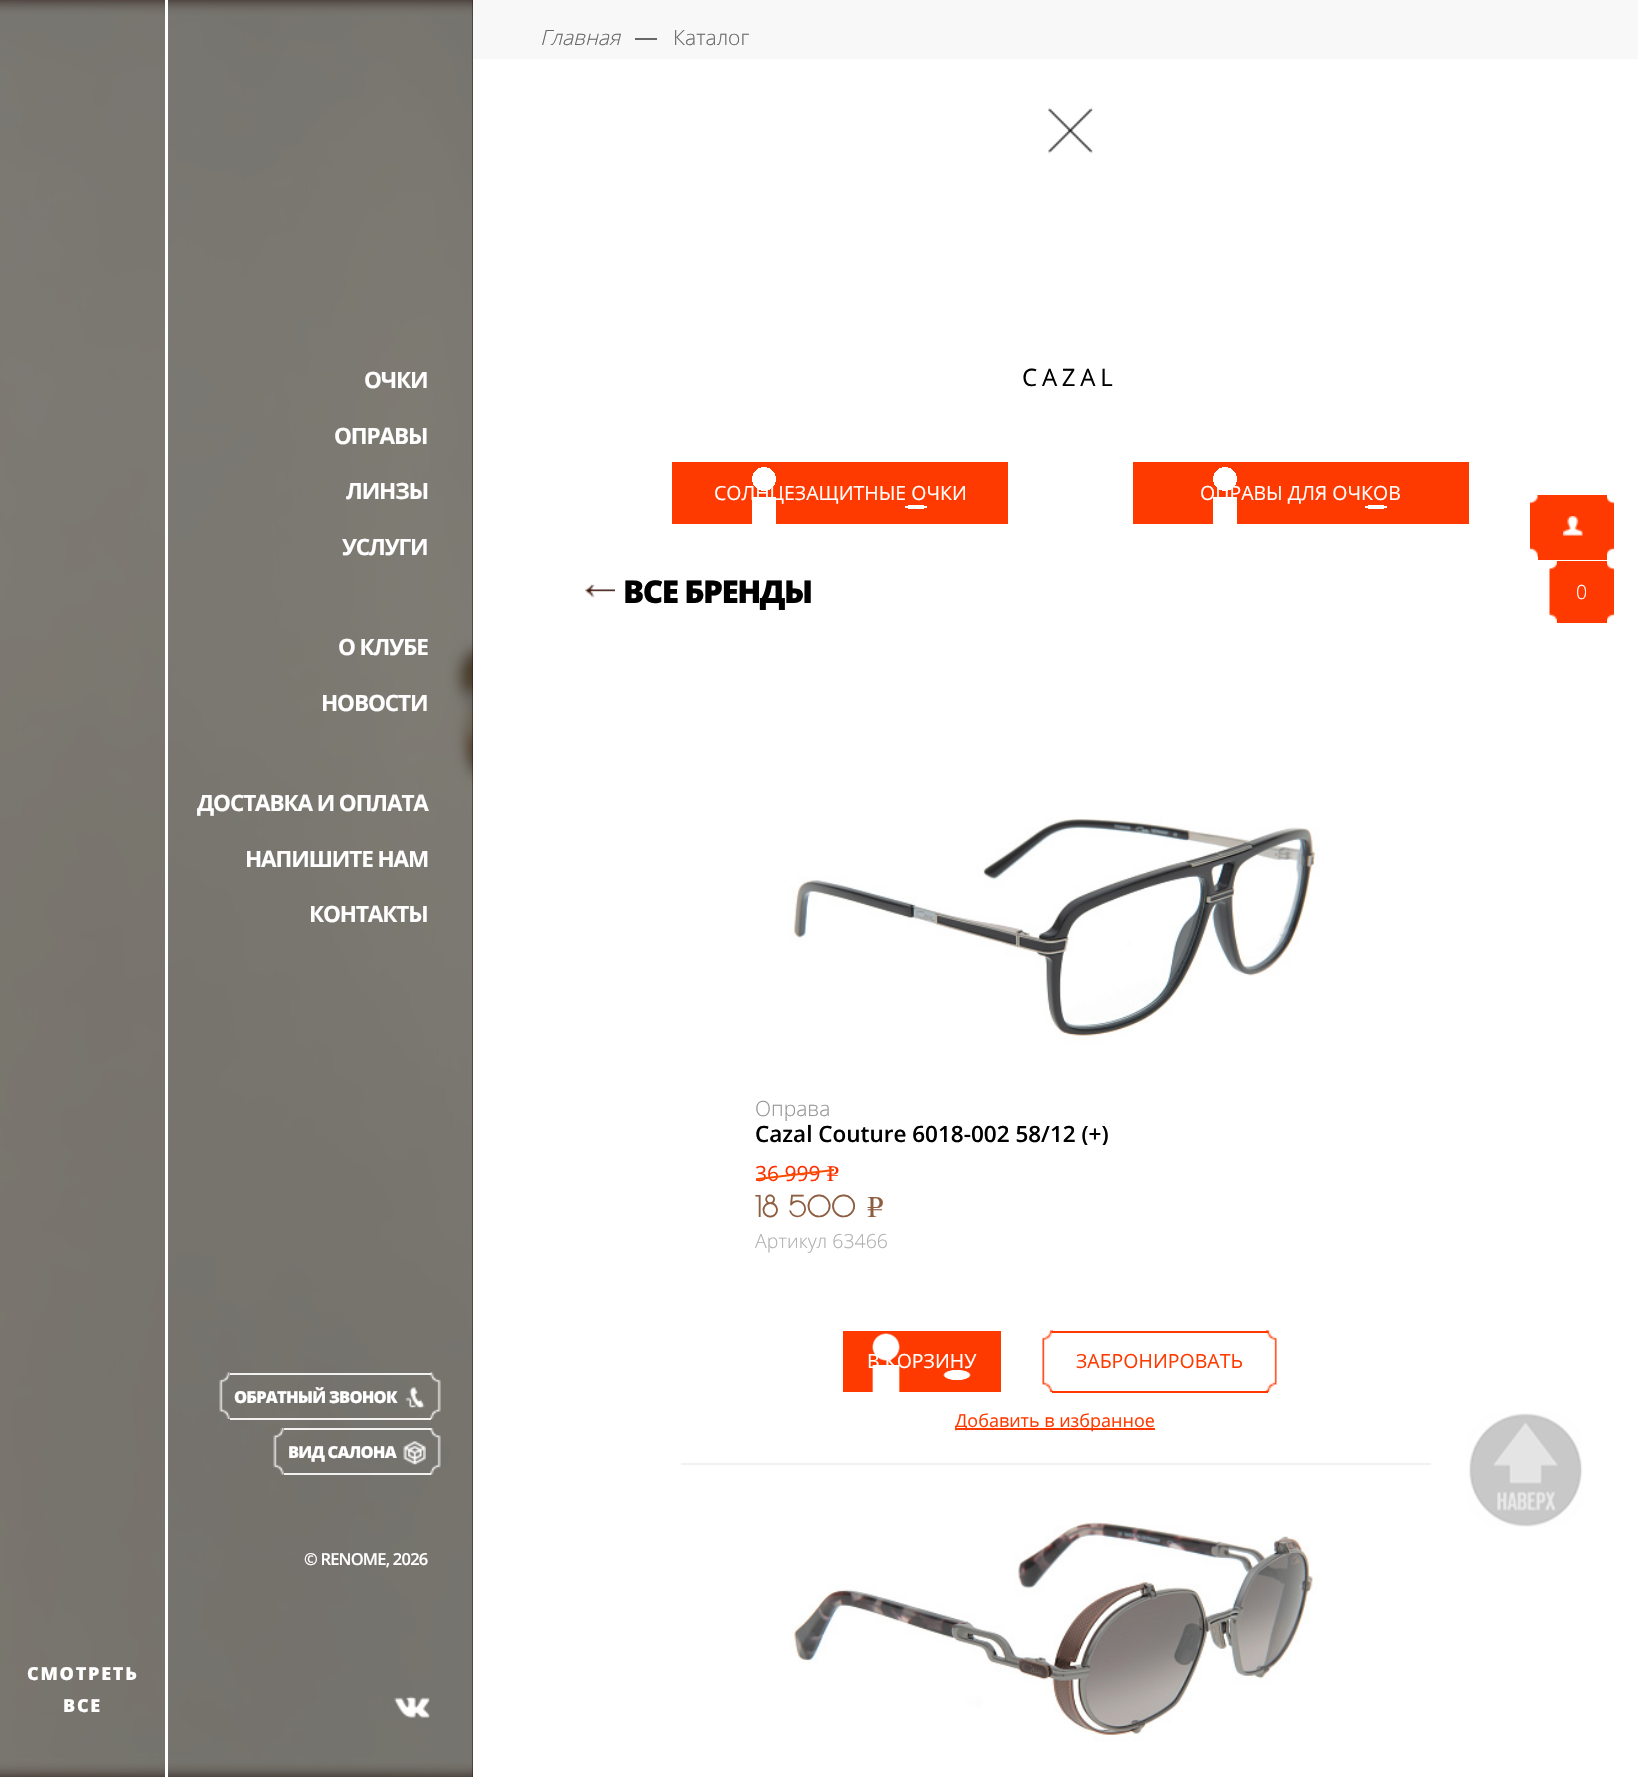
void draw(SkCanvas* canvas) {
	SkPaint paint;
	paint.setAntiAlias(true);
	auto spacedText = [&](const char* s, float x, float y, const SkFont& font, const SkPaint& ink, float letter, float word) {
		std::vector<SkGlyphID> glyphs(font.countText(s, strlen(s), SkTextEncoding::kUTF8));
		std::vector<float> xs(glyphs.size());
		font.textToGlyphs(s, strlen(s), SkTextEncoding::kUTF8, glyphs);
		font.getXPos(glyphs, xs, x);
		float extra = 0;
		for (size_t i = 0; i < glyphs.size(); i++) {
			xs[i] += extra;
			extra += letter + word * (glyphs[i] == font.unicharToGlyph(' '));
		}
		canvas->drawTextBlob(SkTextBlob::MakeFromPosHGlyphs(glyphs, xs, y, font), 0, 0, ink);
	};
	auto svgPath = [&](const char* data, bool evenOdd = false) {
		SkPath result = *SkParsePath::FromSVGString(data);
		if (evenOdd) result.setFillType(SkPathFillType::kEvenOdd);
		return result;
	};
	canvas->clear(0xffffffff);
	paint.setColor(0xff291713);
	canvas->drawRect(SkRect::MakeXYWH(168, 0, 305, 1777), paint);
	canvas->drawImageRect(SkImages::DeferredFromEncodedData(SkData::MakeFromFileName("img1.png")), SkRect::MakeXYWH(168, 0, 305, 1777), SkSamplingOptions());
	SkFont f1(fontMgr->matchFamilyStyle("Open Sans", SkFontStyle::Bold()), 22.5);
	f1.setSubpixel(true);
	paint.setColor(0xffffffff);
	spacedText("ОЧКИ", 364, 388, f1, paint, -1.1, 0);
	spacedText("ОПРАВЫ", 334, 444, f1, paint, -1.1, 0);
	spacedText("ЛИНЗЫ", 346, 499, f1, paint, -1.1, 0);
	spacedText("УСЛУГИ", 342, 555, f1, paint, -1.1, 0);
	spacedText("О КЛУБЕ", 338, 655, f1, paint, -1.1, 0);
	spacedText("НОВОСТИ", 321, 711, f1, paint, -1.1, 0);
	spacedText("ДОСТАВКА И ОПЛАТА", 197, 811, f1, paint, -1.1, 0);
	spacedText("НАПИШИТЕ НАМ", 245, 867, f1, paint, -1.1, 0);
	spacedText("КОНТАКТЫ", 309, 922, f1, paint, -1.1, 0);
	paint.setColor(0xfff1f1f0);
	canvas->drawRect(SkRect::MakeXYWH(230, 1373, 201, 2), paint);
	canvas->drawRect(SkRect::MakeXYWH(230, 1418, 201, 2), paint);
	canvas->drawImageRect(SkImages::DeferredFromEncodedData(SkData::MakeFromFileName("img2.png")), SkRect::MakeXYWH(219, 1372, 11, 47), SkSamplingOptions());
	SkFont f2(fontMgr->matchFamilyStyle("Open Sans", SkFontStyle(800, SkFontStyle::kNormal_Width, SkFontStyle::kUpright_Slant)), 16.5);
	f2.setSubpixel(true);
	paint.setColor(0xffffffff);
	spacedText("ОБРАТНЫЙ ЗВОНОК", 234, 1403, f2, paint, -0.8, 0);
	canvas->drawImageRect(SkImages::DeferredFromEncodedData(SkData::MakeFromFileName("img3.png")), SkRect::MakeXYWH(405, 1387, 20, 22), SkSamplingOptions());
	canvas->drawImageRect(SkImages::DeferredFromEncodedData(SkData::MakeFromFileName("img4.png")), SkRect::MakeXYWH(430, 1372, 11, 47), SkSamplingOptions());
	paint.setColor(0xfff1f1f0);
	canvas->drawRect(SkRect::MakeXYWH(284, 1428, 147, 2), paint);
	canvas->drawRect(SkRect::MakeXYWH(284, 1473, 147, 2), paint);
	canvas->drawImageRect(SkImages::DeferredFromEncodedData(SkData::MakeFromFileName("img5.png")), SkRect::MakeXYWH(273, 1428, 11, 47), SkSamplingOptions());
	paint.setColor(0xffffffff);
	spacedText("ВИД САЛОНА", 288, 1458, f2, paint, -0.8, 0);
	canvas->drawImageRect(SkImages::DeferredFromEncodedData(SkData::MakeFromFileName("img6.png")), SkRect::MakeXYWH(403, 1440, 23, 25), SkSamplingOptions());
	canvas->drawImageRect(SkImages::DeferredFromEncodedData(SkData::MakeFromFileName("img7.png")), SkRect::MakeXYWH(430, 1428, 11, 47), SkSamplingOptions());
	SkFont f3(fontMgr->matchFamilyStyle("Open Sans", SkFontStyle(600, SkFontStyle::kNormal_Width, SkFontStyle::kUpright_Slant)), 16.5);
	f3.setSubpixel(true);
	spacedText("© RENOME, 2026", 304, 1565, f3, paint, -0.8, 0);
	canvas->drawImageRect(SkImages::DeferredFromEncodedData(SkData::MakeFromFileName("img8.png")), SkRect::MakeXYWH(394, 1696, 36, 22), SkSamplingOptions());
	paint.setColor(0xff2b1713);
	canvas->drawRect(SkRect::MakeXYWH(0, 0, 165, 1777), paint);
	canvas->drawImageRect(SkImages::DeferredFromEncodedData(SkData::MakeFromFileName("img9.png")), SkRect::MakeXYWH(0, 0, 165, 1777), SkSamplingOptions());
	SkFont f4(fontMgr->matchFamilyStyle("Open Sans", SkFontStyle(800, SkFontStyle::kNormal_Width, SkFontStyle::kUpright_Slant)), 18);
	f4.setSubpixel(true);
	paint.setColor(0xffffffff);
	spacedText("СМОТРЕТЬ", 27, 1680, f4, paint, 1.75, 0);
	spacedText("ВСЕ", 63, 1712, f4, paint, 1.75, 0);
	paint.setColor(0xfff8f8f8);
	canvas->drawRect(SkRect::MakeXYWH(473, 0, 1165, 59), paint);
	SkFont f5(fontMgr->matchFamilyStyle("Open Sans", SkFontStyle(300, SkFontStyle::kNormal_Width, SkFontStyle::kItalic_Slant)), 21);
	f5.setSubpixel(true);
	paint.setColor(0xff686869);
	canvas->drawString("Главная", 540, 45, f5, paint);
	canvas->drawRect(SkRect::MakeXYWH(635, 38, 22, 2), paint);
	SkFont f6(fontMgr->matchFamilyStyle("Open Sans", SkFontStyle(300, SkFontStyle::kNormal_Width, SkFontStyle::kUpright_Slant)), 21);
	f6.setSubpixel(true);
	canvas->drawString("Каталог", 673, 45, f6, paint);
	canvas->drawImageRect(SkImages::DeferredFromEncodedData(SkData::MakeFromFileName("img10.png")), SkRect::MakeXYWH(1048, 107, 45, 47), SkSamplingOptions());
	SkFont f7(fontMgr->matchFamilyStyle("Open Sans", SkFontStyle::Normal()), 24);
	f7.setSubpixel(true);
	paint.setColor(0xff000000);
	spacedText("CAZAL", 1022, 386, f7, paint, 4.75, 0);
	{
		const SkColor colors[] = {0xffffffff, 0xffff3a00};
		const float stops[] = {1, 1};
		paint.setShader(SkGradientShader::MakeRadial({764, 479}, 12, colors, stops, 2, SkTileMode::kClamp));
		paint.setAlpha(255);
	}
	canvas->drawRect(SkRect::MakeXYWH(672, 462, 152, 35), paint);
	paint.setShader(nullptr);
	paint.setColor(0xffff3a00);
	canvas->drawRect(SkRect::MakeXYWH(824, 462, 184, 27), paint);
	{
		const SkColor colors[] = {0x00ff3a00, 0xffff3a00};
		const float stops[] = {0.06, 0.06};
		SkMatrix m = SkMatrix::Translate(916, 507).preScale(185, 34);
		paint.setShader(SkGradientShader::MakeRadial({0, 0}, 1, colors, stops, 2, SkTileMode::kClamp, 0, &m));
		paint.setAlpha(255);
	}
	canvas->drawRect(SkRect::MakeXYWH(857, 489, 151, 35), paint);
	{
		const SkColor colors[] = {0x00ff3a00, 0xffff3a00};
		const float stops[] = {1, 1};
		SkMatrix m = SkMatrix::Translate(764, 507).preScale(12, 27060);
		paint.setShader(SkGradientShader::MakeRadial({0, 0}, 1, colors, stops, 2, SkTileMode::kClamp, 0, &m));
		paint.setAlpha(255);
	}
	canvas->drawRect(SkRect::MakeXYWH(672, 489, 185, 35), paint);
	SkFont f8(fontMgr->matchFamilyStyle("Open Sans", SkFontStyle::Normal()), 19.5);
	f8.setSubpixel(true);
	paint.setShader(nullptr);
	paint.setColor(0xffffffff);
	canvas->drawString("СОЛНЦЕЗАЩИТНЫЕ ОЧКИ", 714, 500, f8, paint);
	{
		const SkColor colors[] = {0xffffffff, 0xffff3a00};
		const float stops[] = {1, 1};
		paint.setShader(SkGradientShader::MakeRadial({1225, 479}, 12, colors, stops, 2, SkTileMode::kClamp));
		paint.setAlpha(255);
	}
	canvas->drawRect(SkRect::MakeXYWH(1133, 462, 151, 35), paint);
	paint.setShader(nullptr);
	paint.setColor(0xffff3a00);
	canvas->drawRect(SkRect::MakeXYWH(1284, 462, 185, 27), paint);
	{
		const SkColor colors[] = {0x00ff3a00, 0xffff3a00};
		const float stops[] = {0.06, 0.06};
		SkMatrix m = SkMatrix::Translate(1376, 507).preScale(185, 34);
		paint.setShader(SkGradientShader::MakeRadial({0, 0}, 1, colors, stops, 2, SkTileMode::kClamp, 0, &m));
		paint.setAlpha(255);
	}
	canvas->drawRect(SkRect::MakeXYWH(1317, 489, 152, 35), paint);
	{
		const SkColor colors[] = {0x00ff3a00, 0xffff3a00};
		const float stops[] = {1, 1};
		SkMatrix m = SkMatrix::Translate(1225, 507).preScale(12, 27060);
		paint.setShader(SkGradientShader::MakeRadial({0, 0}, 1, colors, stops, 2, SkTileMode::kClamp, 0, &m));
		paint.setAlpha(255);
	}
	canvas->drawRect(SkRect::MakeXYWH(1133, 489, 184, 35), paint);
	paint.setShader(nullptr);
	paint.setColor(0xffffffff);
	canvas->drawString("ОПРАВЫ ДЛЯ ОЧКОВ", 1200, 500, f8, paint);
	canvas->drawImageRect(SkImages::DeferredFromEncodedData(SkData::MakeFromFileName("img11.png")), SkRect::MakeXYWH(585, 584, 30, 14), SkSamplingOptions());
	SkFont f9(fontMgr->matchFamilyStyle("Open Sans", SkFontStyle(800, SkFontStyle::kNormal_Width, SkFontStyle::kUpright_Slant)), 31.5);
	f9.setSubpixel(true);
	paint.setColor(0xff000000);
	spacedText("ВСЕ БРЕНДЫ", 623, 603, f9, paint, -1.5, 0);
	paint.setColor(0xffff3a00);
	canvas->drawRect(SkRect::MakeXYWH(1538, 495, 69, 65), paint);
	canvas->drawImageRect(SkImages::DeferredFromEncodedData(SkData::MakeFromFileName("img12.png")), SkRect::MakeXYWH(1530, 495, 8, 62), SkSamplingOptions());
	canvas->drawImageRect(SkImages::DeferredFromEncodedData(SkData::MakeFromFileName("img13.png")), SkRect::MakeXYWH(1563, 516, 20, 20), SkSamplingOptions());
	canvas->drawImageRect(SkImages::DeferredFromEncodedData(SkData::MakeFromFileName("img14.png")), SkRect::MakeXYWH(1607, 496, 7, 59), SkSamplingOptions());
	canvas->drawRect(SkRect::MakeXYWH(1557, 561, 50, 62), paint);
	canvas->drawImageRect(SkImages::DeferredFromEncodedData(SkData::MakeFromFileName("img15.png")), SkRect::MakeXYWH(1549, 561, 8, 62), SkSamplingOptions());
	SkFont f10(fontMgr->matchFamilyStyle("Open Sans", SkFontStyle(300, SkFontStyle::kNormal_Width, SkFontStyle::kUpright_Slant)), 19.5);
	f10.setSubpixel(true);
	paint.setColor(0xffffffff);
	canvas->drawString("0", 1576, 599, f10, paint);
	canvas->drawImageRect(SkImages::DeferredFromEncodedData(SkData::MakeFromFileName("img14.png")), SkRect::MakeXYWH(1607, 562, 7, 59), SkSamplingOptions());
	paint.setColor(0xfff1f1f1);
	canvas->drawRect(SkRect::MakeXYWH(681, 1463, 750, 2), paint);
	canvas->drawImageRect(SkImages::DeferredFromEncodedData(SkData::MakeFromFileName("img16.png")), SkRect::MakeXYWH(788, 818, 532, 226), SkSamplingOptions());
	paint.setColor(0xff949494);
	canvas->drawString("Оправа", 755, 1116, f6, paint);
	canvas->save();
	canvas->clipRect(SkRect::MakeXYWH(756, 1121, 450, 24));
	SkFont f11(fontMgr->matchFamilyStyle("Open Sans", SkFontStyle(600, SkFontStyle::kNormal_Width, SkFontStyle::kUpright_Slant)), 22.5);
	f11.setSubpixel(true);
	paint.setColor(0xff000000);
	canvas->drawString("Cazal Couture 6018-002 58/12 (+)", 755, 1142, f11, paint);
	canvas->restore();
	SkFont f12(fontMgr->matchFamilyStyle("Open Sans", SkFontStyle::Normal()), 21);
	f12.setSubpixel(true);
	paint.setColor(0xffff3000);
	canvas->drawString("36 999", 755, 1181, f12, paint);
	SkFont f13(fontMgr->matchFamilyStyle("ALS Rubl", SkFontStyle::Normal()), 21);
	f13.setSubpixel(true);
	canvas->drawString("k", 826, 1181, f13, paint);
	canvas->save();
	canvas->clipRect(SkRect::MakeXYWH(756, 1086, 600, 222));
	paint.setColor(0xfffa4d00);
	canvas->drawPath(svgPath("M750 1179L834 1169V1171L750 1181Z"), paint);
	canvas->restore();
	SkFont f14(fontMgr->matchFamilyStyle("Poiret One", SkFontStyle::Bold()), 28.5);
	f14.setSubpixel(true);
	paint.setColor(0xff8e5e41);
	canvas->drawString("18 500", 755, 1217, f14, paint);
	SkFont f15(fontMgr->matchFamilyStyle("ALS Rubl", SkFontStyle::Normal()), 28.5);
	f15.setSubpixel(true);
	canvas->drawString("k", 866, 1217, f15, paint);
	paint.setColor(0xffafafaf);
	canvas->drawString("Артикул 63466", 755, 1248, f10, paint);
	{
		const SkColor colors[] = {0xffffffff, 0xffff3a00};
		const float stops[] = {0.89, 1};
		paint.setShader(SkGradientShader::MakeRadial({886, 1347}, 14, colors, stops, 2, SkTileMode::kClamp));
		paint.setAlpha(255);
	}
	canvas->drawRect(SkRect::MakeXYWH(843, 1331, 71, 34), paint);
	paint.setShader(nullptr);
	paint.setColor(0xffff3a00);
	canvas->drawRect(SkRect::MakeXYWH(914, 1331, 87, 27), paint);
	{
		const SkColor colors[] = {0x00ff3a00, 0xffff3a00};
		const float stops[] = {0.14, 0.16};
		SkMatrix m = SkMatrix::Translate(957, 1375).preScale(87, 34);
		paint.setShader(SkGradientShader::MakeRadial({0, 0}, 1, colors, stops, 2, SkTileMode::kClamp, 0, &m));
		paint.setAlpha(255);
	}
	canvas->drawRect(SkRect::MakeXYWH(930, 1358, 71, 34), paint);
	{
		const SkColor colors[] = {0x00ff3a00, 0xffff3a00};
		const float stops[] = {0.89, 1};
		SkMatrix m = SkMatrix::Translate(886, 1375).preScale(14, 30443);
		paint.setShader(SkGradientShader::MakeRadial({0, 0}, 1, colors, stops, 2, SkTileMode::kClamp, 0, &m));
		paint.setAlpha(255);
	}
	canvas->drawRect(SkRect::MakeXYWH(843, 1358, 87, 34), paint);
	paint.setShader(nullptr);
	paint.setColor(0xffffffff);
	canvas->drawString("В КОРЗИНУ", 867, 1368, f8, paint);
	paint.setColor(0xffff3a00);
	canvas->drawRect(SkRect::MakeXYWH(1052, 1331, 216, 2), paint);
	canvas->drawRect(SkRect::MakeXYWH(1052, 1391, 216, 2), paint);
	canvas->drawImageRect(SkImages::DeferredFromEncodedData(SkData::MakeFromFileName("img17.png")), SkRect::MakeXYWH(1042, 1330, 11, 62), SkSamplingOptions());
	canvas->drawString("ЗАБРОНИРОВАТЬ", 1076, 1368, f8, paint);
	canvas->drawImageRect(SkImages::DeferredFromEncodedData(SkData::MakeFromFileName("img18.png")), SkRect::MakeXYWH(1266, 1330, 11, 62), SkSamplingOptions());
	canvas->drawRect(SkRect::MakeXYWH(956, 1428, 199, 2), paint);
	SkFont f16(fontMgr->matchFamilyStyle("Open Sans", SkFontStyle::Normal()), 18);
	f16.setSubpixel(true);
	canvas->drawString("Добавить в избранное", 955, 1427, f16, paint);
	canvas->drawImageRect(SkImages::DeferredFromEncodedData(SkData::MakeFromFileName("img19.png")), SkRect::MakeXYWH(790, 1520, 527, 222), SkSamplingOptions());
	canvas->drawImageRect(SkImages::DeferredFromEncodedData(SkData::MakeFromFileName("img20.png")), SkRect::MakeXYWH(1468, 1413, 115, 114), SkSamplingOptions());
}
